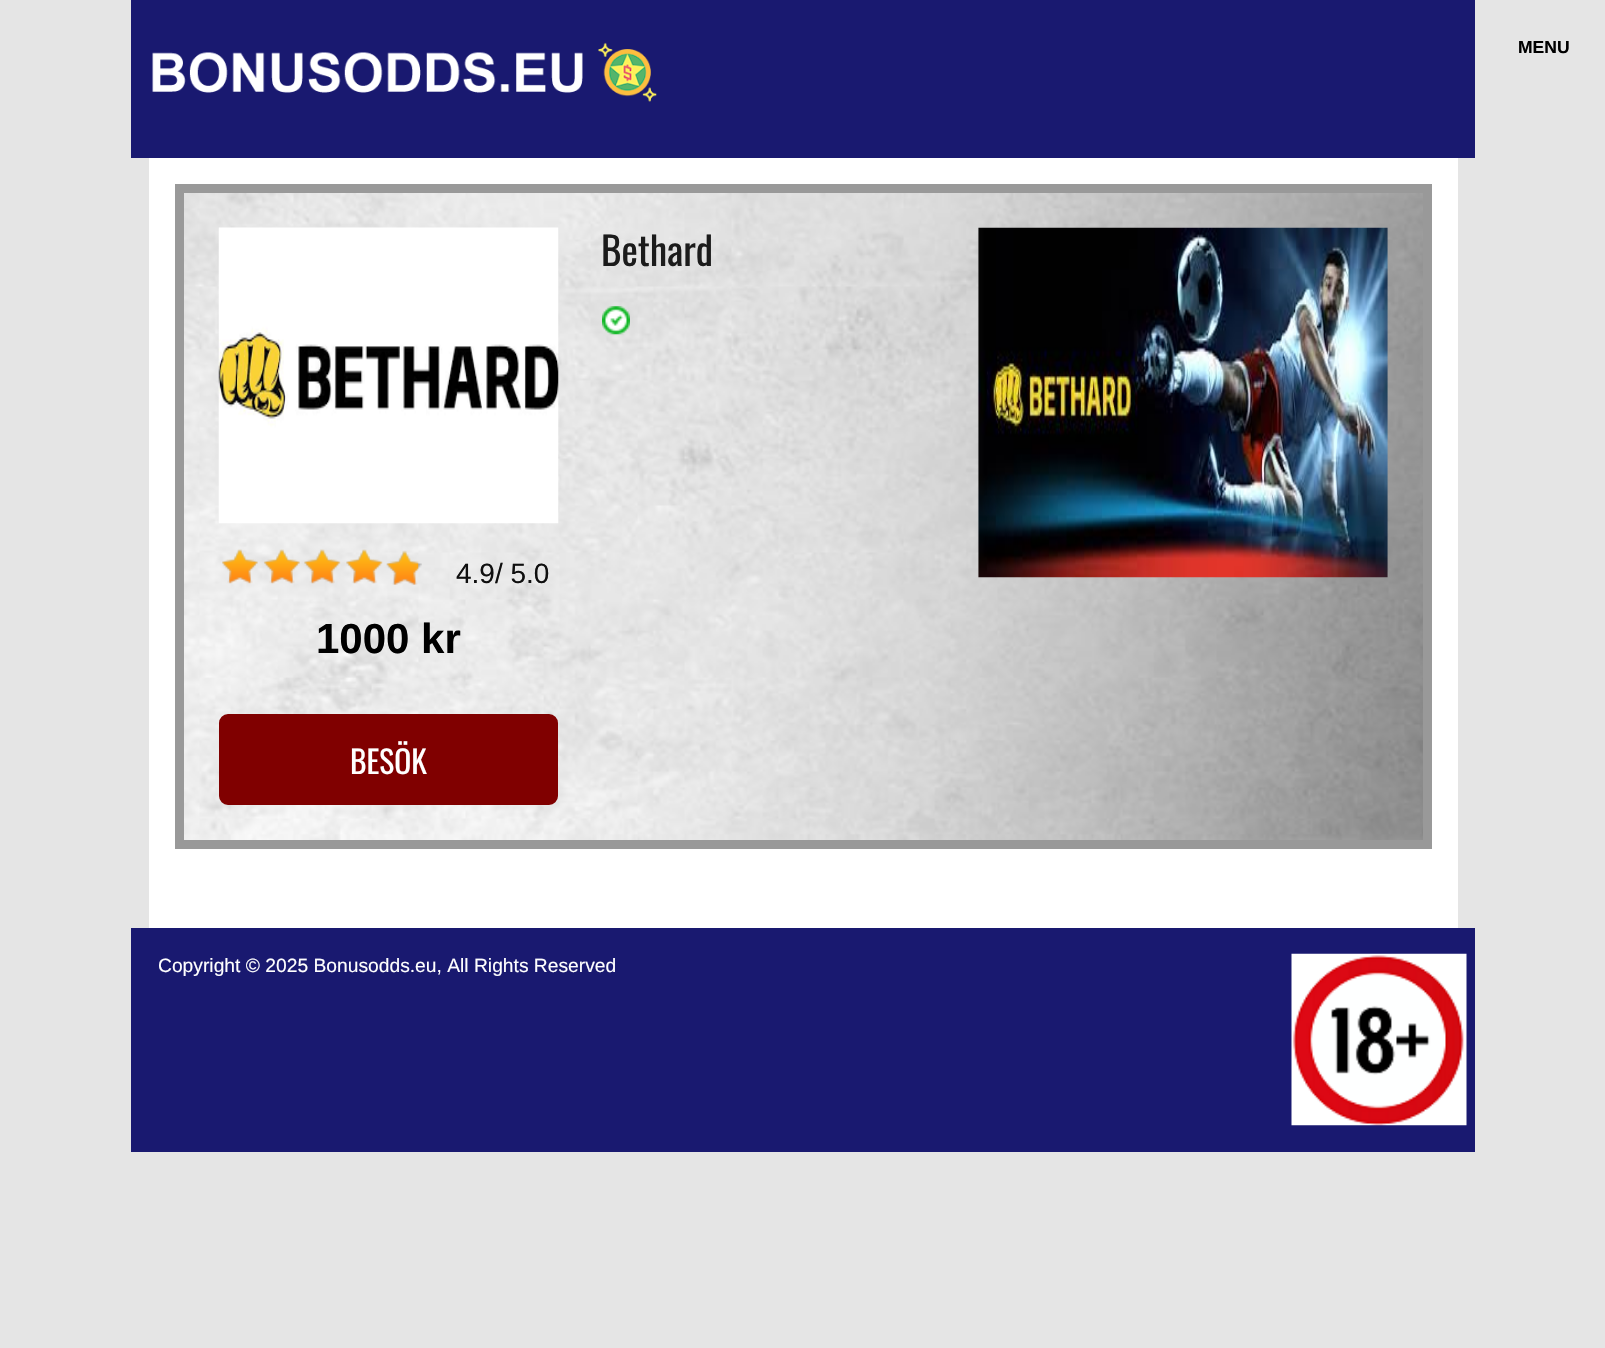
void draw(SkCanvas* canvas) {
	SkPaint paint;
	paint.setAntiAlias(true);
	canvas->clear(0xffe5e5e5);
	paint.setColor(0xff191970);
	canvas->drawRect(SkRect::MakeXYWH(131, 0, 1344, 158), paint);
	canvas->drawImageRect(SkImages::DeferredFromEncodedData(SkData::MakeFromFileName("img1.png")), SkRect::MakeXYWH(152, 42, 505, 60), SkSamplingOptions());
	SkFont f1(fontMgr->matchFamilyStyle("Liberation Sans", SkFontStyle::Bold()), 17.5);
	f1.setSubpixel(true);
	paint.setColor(0xff000000);
	canvas->drawString("MENU", 1518, 53, f1, paint);
	paint.setColor(0xffffffff);
	canvas->drawRect(SkRect::MakeXYWH(149, 158, 1309, 770), paint);
	canvas->drawImageRect(SkImages::DeferredFromEncodedData(SkData::MakeFromFileName("img2.png")), SkRect::MakeXYWH(184, 193, 1239, 647), SkSamplingOptions());
	paint.setStroke(true);
	paint.setStrokeWidth(9);
	paint.setColor(0xff999999);
	canvas->drawRect(SkRect::MakeXYWH(179.5, 188.5, 1248, 656), paint);
	SkFont f2(fontMgr->matchFamilyStyle("Oswald", SkFontStyle::Normal()), 39);
	f2.setSubpixel(true);
	paint.setStroke(false);
	paint.setColor(0xff1b1b1b);
	canvas->drawString("Bethard", 601, 266, f2, paint);
	canvas->drawImageRect(SkImages::DeferredFromEncodedData(SkData::MakeFromFileName("img3.png")), SkRect::MakeXYWH(602, 306, 28, 29), SkSamplingOptions());
	canvas->drawImageRect(SkImages::DeferredFromEncodedData(SkData::MakeFromFileName("img4.png")), SkRect::MakeXYWH(978, 227, 410, 351), SkSamplingOptions());
	canvas->drawImageRect(SkImages::DeferredFromEncodedData(SkData::MakeFromFileName("img5.png")), SkRect::MakeXYWH(218, 227, 341, 297), SkSamplingOptions());
	canvas->drawImageRect(SkImages::DeferredFromEncodedData(SkData::MakeFromFileName("img6.png")), SkRect::MakeXYWH(222, 549, 200, 36), SkSamplingOptions());
	canvas->drawImageRect(SkImages::DeferredFromEncodedData(SkData::MakeFromFileName("img7.png")), SkRect::MakeXYWH(222, 549, 197, 36), SkSamplingOptions());
	SkFont f3(fontMgr->matchFamilyStyle("Liberation Sans", SkFontStyle::Normal()), 28);
	f3.setSubpixel(true);
	paint.setColor(0xff0f0f0f);
	canvas->drawString("4.9/ 5.0", 456, 583, f3, paint);
	SkFont f4(fontMgr->matchFamilyStyle("Liberation Sans", SkFontStyle::Bold()), 42);
	f4.setSubpixel(true);
	paint.setColor(0xff000000);
	canvas->drawString("1000 kr", 316, 653, f4, paint);
	paint.setColor(0xff800000);
	canvas->drawRoundRect(SkRect::MakeXYWH(220, 715, 337, 89), 8, 8, paint);
	paint.setStroke(true);
	paint.setStrokeWidth(2);
	canvas->drawRoundRect(SkRect::MakeXYWH(220, 715, 337, 89), 8, 8, paint);
	SkFont f5(fontMgr->matchFamilyStyle("Oswald", SkFontStyle::Normal()), 31.5);
	f5.setSubpixel(true);
	paint.setStroke(false);
	paint.setColor(0xffffffff);
	canvas->drawString("BESÖK", 350, 774, f5, paint);
	paint.setColor(0xff191970);
	canvas->drawRect(SkRect::MakeXYWH(131, 928, 1344, 224), paint);
	SkFont f6(fontMgr->matchFamilyStyle("Liberation Sans", SkFontStyle::Normal()), 19.25);
	f6.setSubpixel(true);
	paint.setColor(0xffffffff);
	canvas->drawString("Copyright © 2025 Bonusodds.eu, All Rights Reserved", 158, 972, f6, paint);
	canvas->drawImageRect(SkImages::DeferredFromEncodedData(SkData::MakeFromFileName("img8.png")), SkRect::MakeXYWH(1291, 953, 176, 173), SkSamplingOptions());
}
